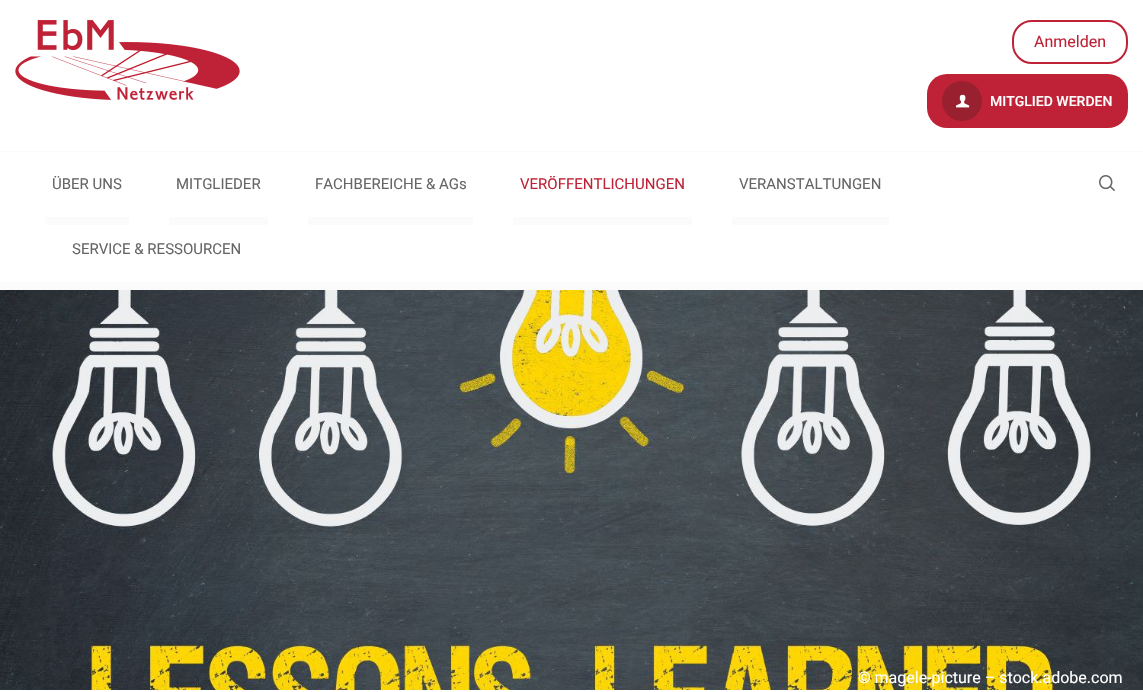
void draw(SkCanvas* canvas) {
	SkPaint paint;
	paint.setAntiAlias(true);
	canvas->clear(0xffffffff);
	canvas->drawImageRect(SkImages::DeferredFromEncodedData(SkData::MakeFromFileName("img1.png")), SkRect::MakeXYWH(15, 20, 225, 80), SkSamplingOptions());
	paint.setStroke(true);
	paint.setStrokeWidth(2);
	paint.setColor(0xffbf2236);
	canvas->drawRoundRect(SkRect::MakeXYWH(1013, 21, 114, 42), 19, 19, paint);
	SkFont f1(fontMgr->matchFamilyStyle("Roboto", SkFontStyle::Normal()), 16);
	f1.setSubpixel(true);
	paint.setStroke(false);
	canvas->drawString("Anmelden", 1034, 47, f1, paint);
	canvas->drawRoundRect(SkRect::MakeXYWH(927, 74, 201, 54), 20, 20, paint);
	paint.setColor(0xff99202e);
	canvas->drawCircle(962, 101, 20, paint);
	canvas->drawImageRect(SkImages::DeferredFromEncodedData(SkData::MakeFromFileName("img2.png")), SkRect::MakeXYWH(956, 94, 14, 14), SkSamplingOptions());
	SkFont f2(fontMgr->matchFamilyStyle("Roboto", SkFontStyle(500, SkFontStyle::kNormal_Width, SkFontStyle::kUpright_Slant)), 14);
	f2.setSubpixel(true);
	paint.setColor(0xffffffff);
	canvas->drawString("MITGLIED WERDEN", 990, 106, f2, paint);
	paint.setColor(0xfffbfbfb);
	canvas->drawRect(SkRect::MakeXYWH(0, 151, 1143, 1), paint);
	canvas->drawRect(SkRect::MakeXYWH(0, 282, 1143, 8), paint);
	canvas->drawRect(SkRect::MakeXYWH(45, 217, 84, 8), paint);
	SkFont f3(fontMgr->matchFamilyStyle("Roboto", SkFontStyle::Normal()), 15);
	f3.setSubpixel(true);
	paint.setColor(0xff666666);
	canvas->drawString("ÜBER UNS", 52, 189, f3, paint);
	paint.setColor(0xfffbfbfb);
	canvas->drawRect(SkRect::MakeXYWH(169, 217, 99, 8), paint);
	paint.setColor(0xff666666);
	canvas->drawString("MITGLIEDER", 176, 189, f3, paint);
	paint.setColor(0xfffbfbfb);
	canvas->drawRect(SkRect::MakeXYWH(308, 217, 165, 8), paint);
	paint.setColor(0xff666666);
	canvas->drawString("FACHBEREICHE & AGs", 315, 189, f3, paint);
	paint.setColor(0xfffbfbfb);
	canvas->drawRect(SkRect::MakeXYWH(513, 217, 179, 8), paint);
	paint.setColor(0xffbf2236);
	canvas->drawString("VERÖFFENTLICHUNGEN", 520, 189, f3, paint);
	paint.setColor(0xfffbfbfb);
	canvas->drawRect(SkRect::MakeXYWH(732, 217, 157, 8), paint);
	paint.setColor(0xff666666);
	canvas->drawString("VERANSTALTUNGEN", 739, 189, f3, paint);
	canvas->drawString("SERVICE & RESSOURCEN", 72, 254, f3, paint);
	canvas->drawImageRect(SkImages::DeferredFromEncodedData(SkData::MakeFromFileName("img3.png")), SkRect::MakeXYWH(1099, 175, 16, 16), SkSamplingOptions());
	canvas->drawImageRect(SkImages::DeferredFromEncodedData(SkData::MakeFromFileName("img4.png")), SkRect::MakeXYWH(0, 290, 1143, 400), SkSamplingOptions());
	paint.setColor(0xffffffff);
	canvas->drawString("© magele-picture – stock.adobe.com", 858, 683, f1, paint);
}
